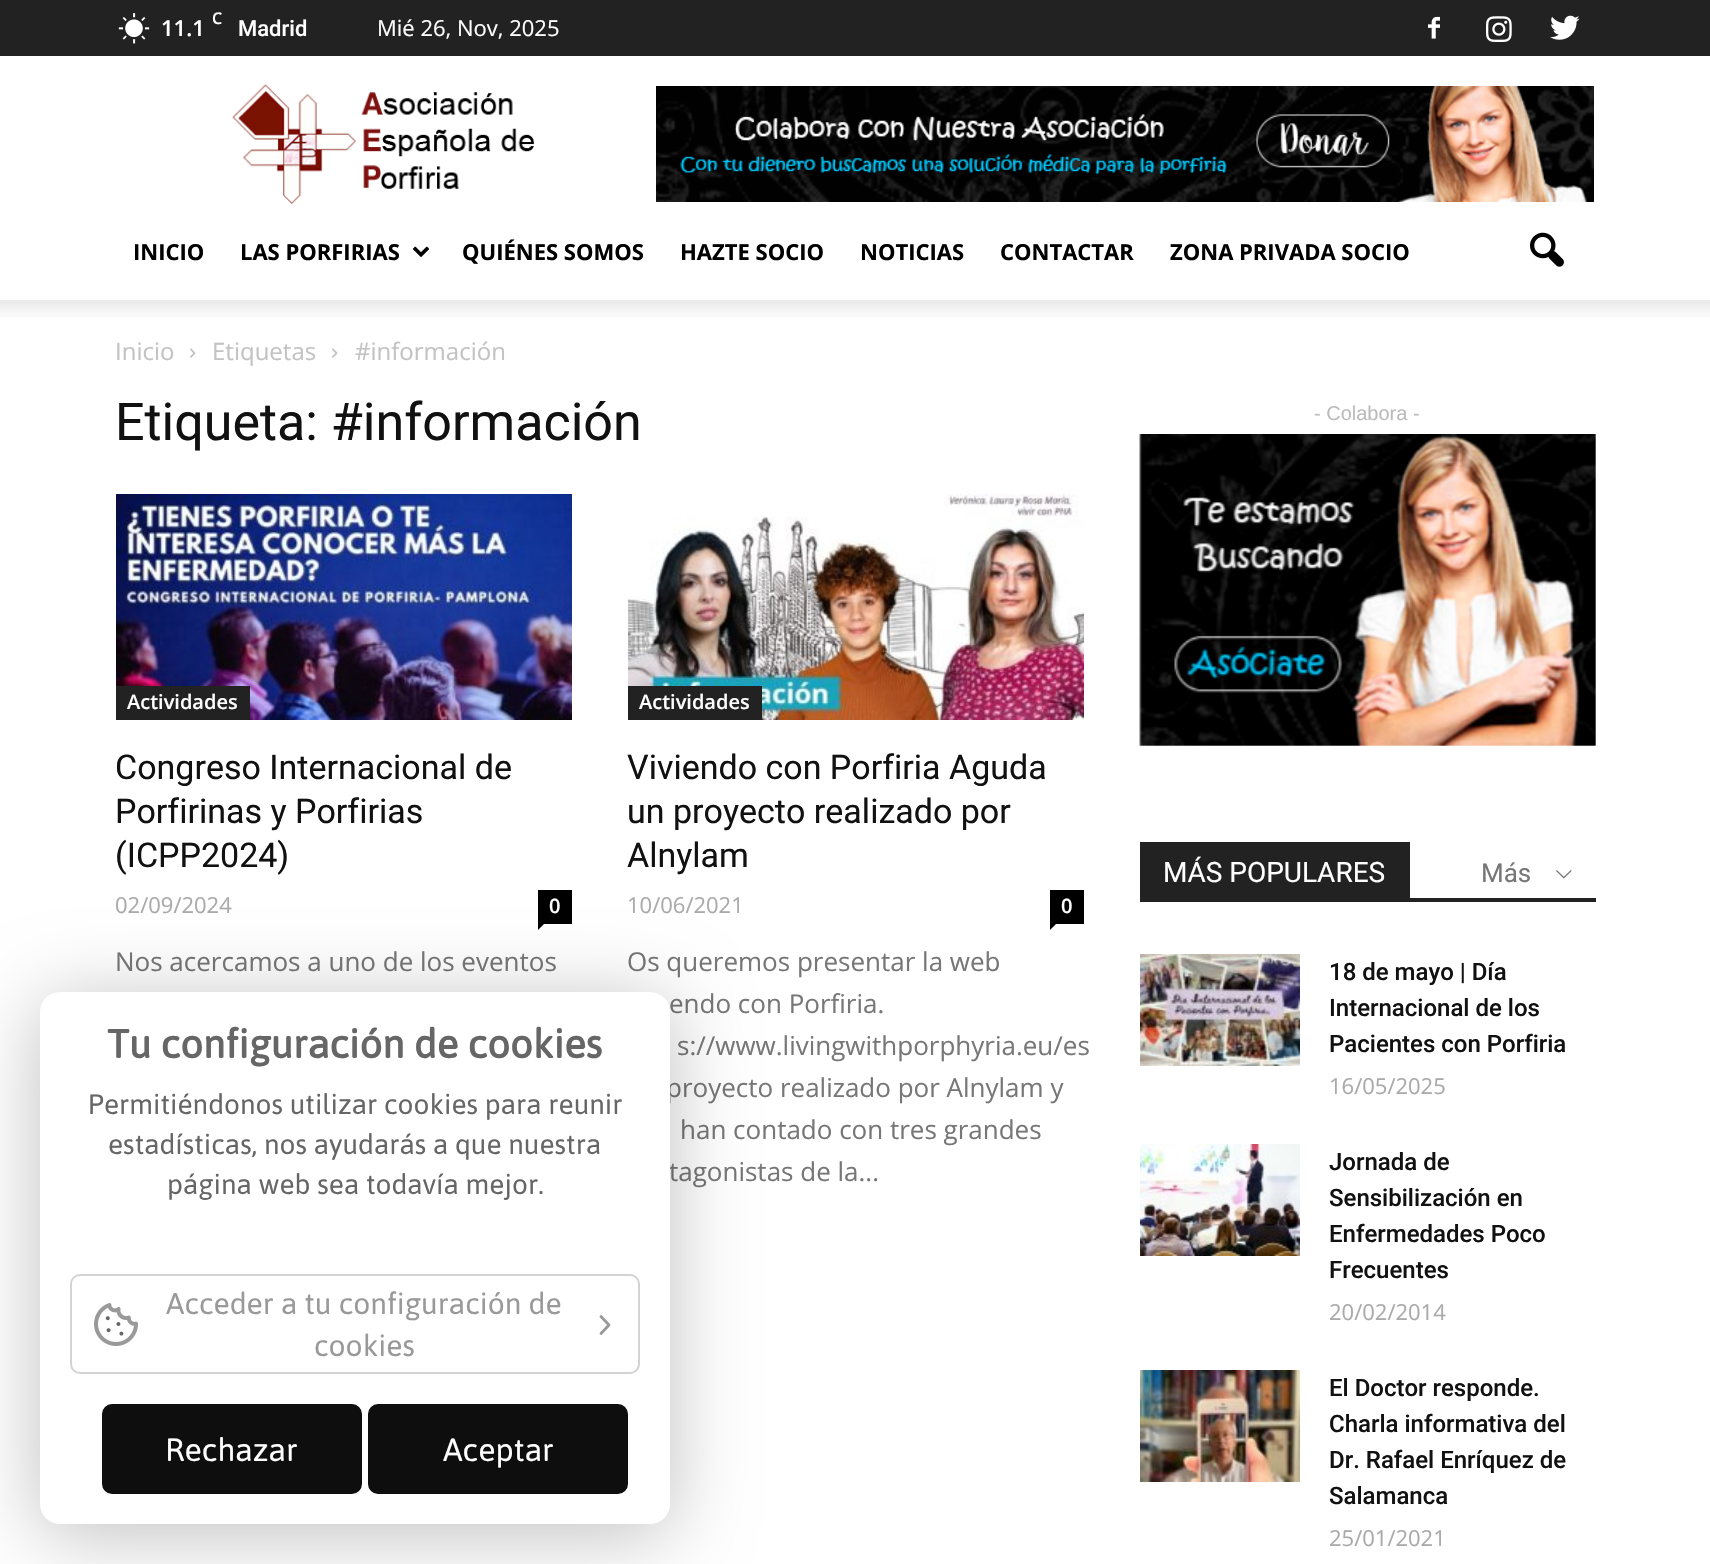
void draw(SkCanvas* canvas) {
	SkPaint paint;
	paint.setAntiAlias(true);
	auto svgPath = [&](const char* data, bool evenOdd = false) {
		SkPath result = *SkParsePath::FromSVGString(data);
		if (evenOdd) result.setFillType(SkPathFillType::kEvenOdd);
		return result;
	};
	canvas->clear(0xffffffff);
	paint.setColor(0xff222222);
	canvas->drawRect(SkRect::MakeXYWH(0, 0, 1710, 56), paint);
	canvas->drawImageRect(SkImages::DeferredFromEncodedData(SkData::MakeFromFileName("img1.png")), SkRect::MakeXYWH(118, 13, 32, 31), SkSamplingOptions());
	SkFont f1(fontMgr->matchFamilyStyle("Open Sans", SkFontStyle(600, SkFontStyle::kNormal_Width, SkFontStyle::kUpright_Slant)), 16);
	f1.setSubpixel(true);
	paint.setColor(0xffffffff);
	canvas->drawString("C", 212, 24, f1, paint);
	SkFont f2(fontMgr->matchFamilyStyle("Open Sans", SkFontStyle(600, SkFontStyle::kNormal_Width, SkFontStyle::kUpright_Slant)), 22);
	f2.setSubpixel(true);
	canvas->drawString("11.1", 161, 36, f2, paint);
	SkFont f3(fontMgr->matchFamilyStyle("Roboto", SkFontStyle(500, SkFontStyle::kNormal_Width, SkFontStyle::kUpright_Slant)), 22);
	f3.setSubpixel(true);
	canvas->drawString("Madrid", 238, 36, f3, paint);
	SkFont f4(fontMgr->matchFamilyStyle("Open Sans", SkFontStyle::Normal()), 22);
	f4.setSubpixel(true);
	canvas->drawString("Mié 26, Nov, 2025", 377, 36, f4, paint);
	canvas->drawImageRect(SkImages::DeferredFromEncodedData(SkData::MakeFromFileName("img2.png")), SkRect::MakeXYWH(1428, 16, 12, 23), SkSamplingOptions());
	canvas->drawImageRect(SkImages::DeferredFromEncodedData(SkData::MakeFromFileName("img3.png")), SkRect::MakeXYWH(1486, 16, 26, 26), SkSamplingOptions());
	canvas->drawImageRect(SkImages::DeferredFromEncodedData(SkData::MakeFromFileName("img4.png")), SkRect::MakeXYWH(1550, 15, 30, 25), SkSamplingOptions());
	canvas->drawImageRect(SkImages::DeferredFromEncodedData(SkData::MakeFromFileName("img5.png")), SkRect::MakeXYWH(232, 84, 302, 120), SkSamplingOptions());
	canvas->drawImageRect(SkImages::DeferredFromEncodedData(SkData::MakeFromFileName("img6.png")), SkRect::MakeXYWH(656, 86, 938, 116), SkSamplingOptions());
	SkFont f5(fontMgr->matchFamilyStyle("Open Sans", SkFontStyle::Bold()), 22);
	f5.setSubpixel(true);
	paint.setColor(0xff000000);
	canvas->drawString("INICIO", 133, 260, f5, paint);
	canvas->drawString("LAS PORFIRIAS", 240, 260, f5, paint);
	canvas->drawImageRect(SkImages::DeferredFromEncodedData(SkData::MakeFromFileName("img7.png")), SkRect::MakeXYWH(413, 246, 16, 11), SkSamplingOptions());
	canvas->drawString("QUIÉNES SOMOS", 462, 260, f5, paint);
	canvas->drawString("HAZTE SOCIO", 680, 260, f5, paint);
	canvas->drawString("NOTICIAS", 860, 260, f5, paint);
	canvas->drawString("CONTACTAR", 1000, 260, f5, paint);
	canvas->drawString("ZONA PRIVADA SOCIO", 1170, 260, f5, paint);
	canvas->drawImageRect(SkImages::DeferredFromEncodedData(SkData::MakeFromFileName("img8.png")), SkRect::MakeXYWH(1530, 232, 34, 35), SkSamplingOptions());
	canvas->drawImageRect(SkImages::DeferredFromEncodedData(SkData::MakeFromFileName("img9.png")), SkRect::MakeXYWH(0, 300, 1710, 17), SkSamplingOptions());
	SkFont f6(fontMgr->matchFamilyStyle("Open Sans", SkFontStyle::Normal()), 24);
	f6.setSubpixel(true);
	paint.setColor(0xffc3c3c3);
	canvas->drawString("Inicio", 115, 360, f6, paint);
	canvas->drawImageRect(SkImages::DeferredFromEncodedData(SkData::MakeFromFileName("img10.png")), SkRect::MakeXYWH(190, 348, 6, 10), SkSamplingOptions());
	canvas->drawString("Etiquetas", 212, 360, f6, paint);
	canvas->drawImageRect(SkImages::DeferredFromEncodedData(SkData::MakeFromFileName("img10.png")), SkRect::MakeXYWH(332, 348, 6, 10), SkSamplingOptions());
	canvas->drawString("#información", 355, 360, f6, paint);
	SkFont f7(fontMgr->matchFamilyStyle("Roboto", SkFontStyle::Normal()), 52);
	f7.setSubpixel(true);
	paint.setColor(0xff111111);
	canvas->drawString("Etiqueta: #información", 115, 440, f7, paint);
	canvas->drawImageRect(SkImages::DeferredFromEncodedData(SkData::MakeFromFileName("img11.png")), SkRect::MakeXYWH(116, 494, 456, 226), SkSamplingOptions());
	paint.setColor(0xff222222);
	canvas->drawRect(SkRect::MakeXYWH(116, 686, 134, 34), paint);
	SkFont f8(fontMgr->matchFamilyStyle("Open Sans", SkFontStyle(600, SkFontStyle::kNormal_Width, SkFontStyle::kUpright_Slant)), 20);
	f8.setSubpixel(true);
	paint.setColor(0xffffffff);
	canvas->drawString("Actividades", 127, 709, f8, paint);
	SkFont f9(fontMgr->matchFamilyStyle("Roboto", SkFontStyle::Normal()), 34);
	f9.setSubpixel(true);
	paint.setColor(0xff111111);
	canvas->drawString("Congreso Internacional de", 115, 779, f9, paint);
	canvas->drawString("Porfirinas y Porfirias", 115, 823, f9, paint);
	canvas->drawString("(ICPP2024)", 115, 867, f9, paint);
	paint.setColor(0xffaaaaaa);
	canvas->drawString("02/09/2024", 115, 913, f4, paint);
	paint.setColor(0xff000000);
	canvas->drawRect(SkRect::MakeXYWH(538, 890, 34, 34), paint);
	paint.setColor(0xffffffff);
	canvas->drawString("0", 549, 913, f8, paint);
	paint.setColor(0xff000000);
	canvas->drawPath(svgPath("M538 924H544L538 930Z"), paint);
	SkFont f10(fontMgr->matchFamilyStyle("Open Sans", SkFontStyle::Normal()), 26);
	f10.setSubpixel(true);
	paint.setColor(0xff777777);
	canvas->drawString("Nos acercamos a uno de los eventos", 115, 971, f10, paint);
	canvas->drawImageRect(SkImages::DeferredFromEncodedData(SkData::MakeFromFileName("img12.png")), SkRect::MakeXYWH(628, 494, 456, 226), SkSamplingOptions());
	paint.setColor(0xff222222);
	canvas->drawRect(SkRect::MakeXYWH(628, 686, 134, 34), paint);
	paint.setColor(0xffffffff);
	canvas->drawString("Actividades", 639, 709, f8, paint);
	paint.setColor(0xff111111);
	canvas->drawString("Viviendo con Porfiria Aguda", 627, 779, f9, paint);
	canvas->drawString("un proyecto realizado por", 627, 823, f9, paint);
	canvas->drawString("Alnylam", 627, 867, f9, paint);
	paint.setColor(0xffaaaaaa);
	canvas->drawString("10/06/2021", 627, 913, f4, paint);
	paint.setColor(0xff000000);
	canvas->drawRect(SkRect::MakeXYWH(1050, 890, 34, 34), paint);
	paint.setColor(0xffffffff);
	canvas->drawString("0", 1061, 913, f8, paint);
	paint.setColor(0xff000000);
	canvas->drawPath(svgPath("M1050 924H1056L1050 930Z"), paint);
	paint.setColor(0xff777777);
	canvas->drawString("Os queremos presentar la web", 627, 971, f10, paint);
	canvas->drawString("endo con Porfiria.", 669, 1013, f10, paint);
	canvas->drawString("s://www.livingwithporphyria.eu/es", 677, 1055, f10, paint);
	canvas->drawString("proyecto realizado por Alnylam y", 666, 1097, f10, paint);
	canvas->drawString("han contado con tres grandes", 680, 1139, f10, paint);
	canvas->drawString("tagonistas de la...", 669, 1181, f10, paint);
	SkFont f11(fontMgr->matchFamilyStyle("Liberation Sans", SkFontStyle::Normal()), 20);
	f11.setSubpixel(true);
	paint.setColor(0xffbbbbbb);
	canvas->drawString("- Colabora -", 1314, 420, f11, paint);
	canvas->drawImageRect(SkImages::DeferredFromEncodedData(SkData::MakeFromFileName("img13.png")), SkRect::MakeXYWH(1139, 434, 457, 312), SkSamplingOptions());
	paint.setColor(0xff222222);
	canvas->drawRect(SkRect::MakeXYWH(1140, 898, 456, 4), paint);
	canvas->drawRect(SkRect::MakeXYWH(1140, 842, 270, 56), paint);
	SkFont f12(fontMgr->matchFamilyStyle("Roboto", SkFontStyle::Normal()), 28);
	f12.setSubpixel(true);
	paint.setColor(0xffffffff);
	canvas->drawString("MÁS POPULARES", 1163, 882, f12, paint);
	SkFont f13(fontMgr->matchFamilyStyle("Roboto", SkFontStyle::Normal()), 26);
	f13.setSubpixel(true);
	paint.setColor(0xff777777);
	canvas->drawString("Más", 1481, 882, f13, paint);
	canvas->drawImageRect(SkImages::DeferredFromEncodedData(SkData::MakeFromFileName("img14.png")), SkRect::MakeXYWH(1556, 870, 16, 9), SkSamplingOptions());
	canvas->drawImageRect(SkImages::DeferredFromEncodedData(SkData::MakeFromFileName("img15.png")), SkRect::MakeXYWH(1140, 954, 160, 112), SkSamplingOptions());
	SkFont f14(fontMgr->matchFamilyStyle("Roboto", SkFontStyle(500, SkFontStyle::kNormal_Width, SkFontStyle::kUpright_Slant)), 24);
	f14.setSubpixel(true);
	paint.setColor(0xff111111);
	canvas->drawString("18 de mayo | Día", 1329, 980, f14, paint);
	canvas->drawString("Internacional de los", 1329, 1016, f14, paint);
	canvas->drawString("Pacientes con Porfiria", 1329, 1052, f14, paint);
	paint.setColor(0xffaaaaaa);
	canvas->drawString("16/05/2025", 1329, 1094, f4, paint);
	canvas->drawImageRect(SkImages::DeferredFromEncodedData(SkData::MakeFromFileName("img16.png")), SkRect::MakeXYWH(1140, 1144, 160, 112), SkSamplingOptions());
	paint.setColor(0xff111111);
	canvas->drawString("Jornada de", 1329, 1170, f14, paint);
	canvas->drawString("Sensibilización en", 1329, 1206, f14, paint);
	canvas->drawString("Enfermedades Poco", 1329, 1242, f14, paint);
	canvas->drawString("Frecuentes", 1329, 1278, f14, paint);
	paint.setColor(0xffaaaaaa);
	canvas->drawString("20/02/2014", 1329, 1320, f4, paint);
	canvas->drawImageRect(SkImages::DeferredFromEncodedData(SkData::MakeFromFileName("img17.png")), SkRect::MakeXYWH(1140, 1370, 160, 112), SkSamplingOptions());
	paint.setColor(0xff111111);
	canvas->drawString("El Doctor responde.", 1329, 1396, f14, paint);
	canvas->drawString("Charla informativa del", 1329, 1432, f14, paint);
	canvas->drawString("Dr. Rafael Enríquez de", 1329, 1468, f14, paint);
	canvas->drawString("Salamanca", 1329, 1504, f14, paint);
	paint.setColor(0xffaaaaaa);
	canvas->drawString("25/01/2021", 1329, 1546, f4, paint);
	paint.setColor(0x40000000);
	paint.setMaskFilter(SkMaskFilter::MakeBlur(kNormal_SkBlurStyle, 40));
	canvas->drawRoundRect(SkRect::MakeXYWH(40, 1002, 630, 532), 20, 20, paint);
	paint.setMaskFilter(nullptr);
	paint.setColor(0xffffffff);
	canvas->drawRoundRect(SkRect::MakeXYWH(40, 992, 630, 532), 20, 20, paint);
	SkFont f15(fontMgr->matchFamilyStyle("Asap", SkFontStyle::Bold()), 40);
	f15.setSubpixel(true);
	paint.setColor(0xff666666);
	canvas->drawString("Tu configuración de cookies", 107, 1058, f15, paint);
	SkFont f16(fontMgr->matchFamilyStyle("Asap", SkFontStyle::Normal()), 28);
	f16.setSubpixel(true);
	canvas->drawString("Permitiéndonos utilizar cookies para reunir", 88, 1114, f16, paint);
	canvas->drawString("estadísticas, nos ayudarás a que nuestra", 108, 1154, f16, paint);
	canvas->drawString("página web sea todavía mejor.", 167, 1194, f16, paint);
	paint.setStroke(true);
	paint.setStrokeWidth(2);
	paint.setColor(0xffd3d3d3);
	canvas->drawRoundRect(SkRect::MakeXYWH(71, 1275, 568, 98), 9, 9, paint);
	canvas->drawImageRect(SkImages::DeferredFromEncodedData(SkData::MakeFromFileName("img18.png")), SkRect::MakeXYWH(94, 1303, 44, 43), SkSamplingOptions());
	SkFont f17(fontMgr->matchFamilyStyle("Asap", SkFontStyle::Normal()), 30);
	f17.setSubpixel(true);
	paint.setStroke(false);
	paint.setColor(0xff999999);
	canvas->drawString("Acceder a tu configuración de", 166, 1314, f17, paint);
	canvas->drawString("cookies", 314, 1356, f17, paint);
	paint.setStroke(true);
	paint.setStrokeWidth(2.8);
	paint.setStrokeCap(SkPaint::kRound_Cap);
	paint.setStrokeJoin(SkPaint::kRound_Join);
	canvas->drawPath(svgPath("M601 1333.5L609 1325L601 1316.5"), paint);
	paint.setStroke(false);
	paint.setColor(0xff0e0e0e);
	canvas->drawRoundRect(SkRect::MakeXYWH(103, 1405, 258, 88), 9, 9, paint);
	paint.setStroke(true);
	paint.setStrokeWidth(2);
	paint.setStrokeCap(SkPaint::kButt_Cap);
	paint.setStrokeJoin(SkPaint::kMiter_Join);
	canvas->drawRoundRect(SkRect::MakeXYWH(103, 1405, 258, 88), 9, 9, paint);
	SkFont f18(fontMgr->matchFamilyStyle("Asap", SkFontStyle::Normal()), 32);
	f18.setSubpixel(true);
	paint.setStroke(false);
	paint.setColor(0xffffffff);
	canvas->drawString("Rechazar", 165, 1461, f18, paint);
	paint.setColor(0xff0e0e0e);
	canvas->drawRoundRect(SkRect::MakeXYWH(369, 1405, 258, 88), 9, 9, paint);
	paint.setStroke(true);
	canvas->drawRoundRect(SkRect::MakeXYWH(369, 1405, 258, 88), 9, 9, paint);
	paint.setStroke(false);
	paint.setColor(0xffffffff);
	canvas->drawString("Aceptar", 443, 1461, f18, paint);
}
